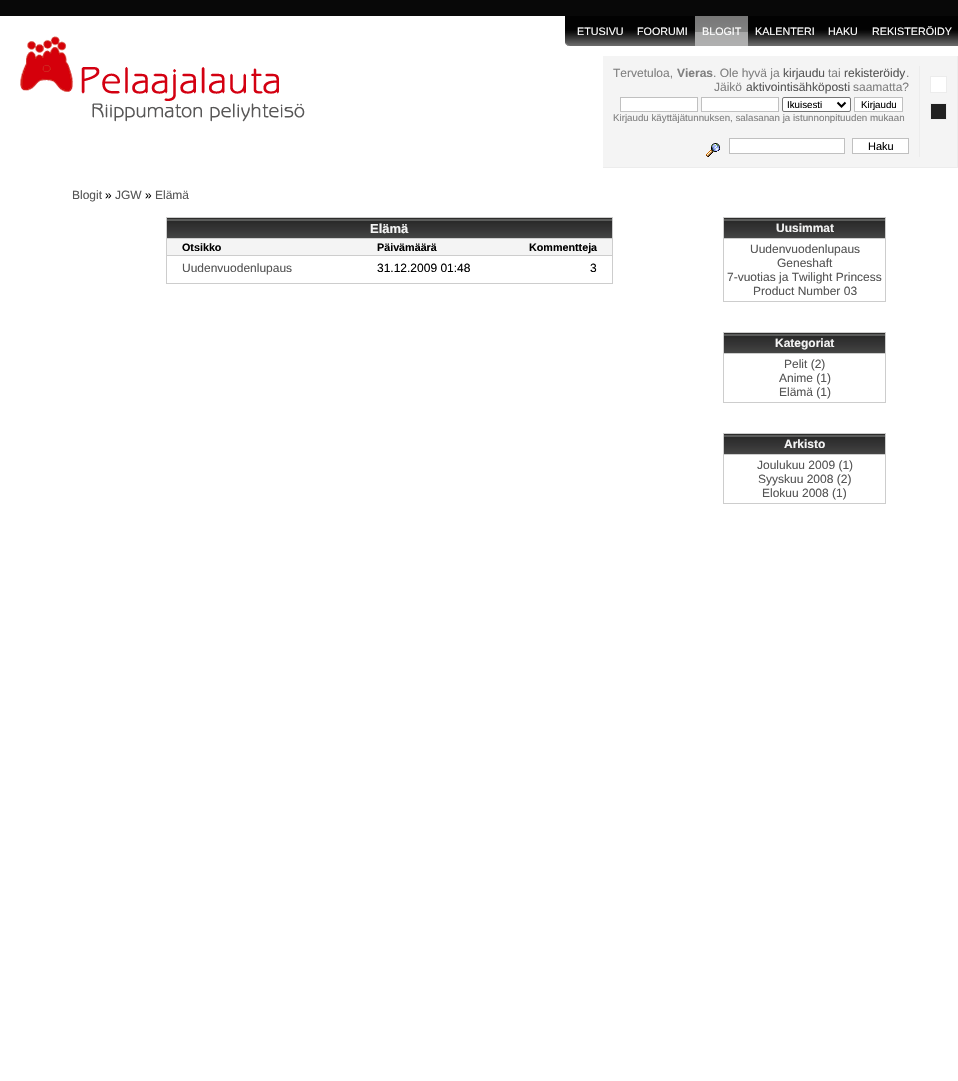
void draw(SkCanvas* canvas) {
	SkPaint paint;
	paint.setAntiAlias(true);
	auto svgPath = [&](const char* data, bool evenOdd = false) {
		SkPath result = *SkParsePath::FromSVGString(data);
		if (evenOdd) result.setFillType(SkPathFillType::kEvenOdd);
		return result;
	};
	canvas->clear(0xffffffff);
	paint.setColor(0xff080808);
	canvas->drawRect(SkRect::MakeXYWH(0, 0, 958, 16), paint);
	canvas->drawImageRect(SkImages::DeferredFromEncodedData(SkData::MakeFromFileName("img1.png")), SkRect::MakeXYWH(565, 16, 5, 30), SkSamplingOptions());
	canvas->drawImageRect(SkImages::DeferredFromEncodedData(SkData::MakeFromFileName("img2.png")), SkRect::MakeXYWH(570, 16, 60, 30), SkSamplingOptions());
	SkFont f1(fontMgr->matchFamilyStyle("Liberation Sans", SkFontStyle::Normal()), 10.75);
	f1.setSubpixel(true);
	paint.setColor(0xffffffff);
	canvas->drawString("ETUSIVU", 577, 35, f1, paint);
	canvas->drawImageRect(SkImages::DeferredFromEncodedData(SkData::MakeFromFileName("img3.png")), SkRect::MakeXYWH(630, 16, 65, 30), SkSamplingOptions());
	canvas->drawString("FOORUMI", 637, 35, f1, paint);
	canvas->drawImageRect(SkImages::DeferredFromEncodedData(SkData::MakeFromFileName("img4.png")), SkRect::MakeXYWH(695, 16, 53, 30), SkSamplingOptions());
	canvas->drawString("BLOGIT", 702, 35, f1, paint);
	canvas->drawImageRect(SkImages::DeferredFromEncodedData(SkData::MakeFromFileName("img5.png")), SkRect::MakeXYWH(748, 16, 73, 30), SkSamplingOptions());
	canvas->drawString("KALENTERI", 755, 35, f1, paint);
	canvas->drawImageRect(SkImages::DeferredFromEncodedData(SkData::MakeFromFileName("img6.png")), SkRect::MakeXYWH(821, 16, 44, 30), SkSamplingOptions());
	canvas->drawString("HAKU", 828, 35, f1, paint);
	canvas->drawImageRect(SkImages::DeferredFromEncodedData(SkData::MakeFromFileName("img7.png")), SkRect::MakeXYWH(865, 16, 93, 30), SkSamplingOptions());
	canvas->drawString("REKISTERÖIDY", 872, 35, f1, paint);
	canvas->drawImageRect(SkImages::DeferredFromEncodedData(SkData::MakeFromFileName("img8.png")), SkRect::MakeXYWH(20, 36, 285, 86), SkSamplingOptions());
	paint.setColor(0xfff4f4f4);
	canvas->drawRect(SkRect::MakeXYWH(603, 56, 354, 111), paint);
	paint.setColor(0xffececec);
	canvas->drawRect(SkRect::MakeXYWH(957, 56, 1, 112), paint);
	canvas->drawRect(SkRect::MakeXYWH(603, 167, 355, 1), paint);
	canvas->drawRect(SkRect::MakeXYWH(919, 66, 1, 91), paint);
	SkFont f2(fontMgr->matchFamilyStyle("Liberation Sans", SkFontStyle::Normal()), 12);
	f2.setSubpixel(true);
	paint.setColor(0xff808080);
	canvas->drawString("Tervetuloa,", 613, 77, f2, paint);
	SkFont f3(fontMgr->matchFamilyStyle("Liberation Sans", SkFontStyle::Bold()), 12);
	f3.setSubpixel(true);
	canvas->drawString("Vieras", 677, 77, f3, paint);
	canvas->drawString(". Ole hyvä ja", 713, 77, f2, paint);
	paint.setColor(0xff555555);
	canvas->drawString("kirjaudu", 783, 77, f2, paint);
	paint.setColor(0xff808080);
	canvas->drawString("tai", 828, 77, f2, paint);
	paint.setColor(0xff555555);
	canvas->drawString("rekisteröidy", 844, 77, f2, paint);
	paint.setColor(0xff808080);
	canvas->drawString(".", 906, 77, f2, paint);
	canvas->drawString("Jäikö", 714, 91, f2, paint);
	paint.setColor(0xff555555);
	canvas->drawString("aktivointisähköposti", 746, 91, f2, paint);
	paint.setColor(0xff808080);
	canvas->drawString("saamatta?", 853, 91, f2, paint);
	paint.setColor(0xffffffff);
	canvas->drawRect(SkRect::MakeXYWH(620.5, 97.5, 77, 14), paint);
	paint.setStroke(true);
	paint.setStrokeWidth(1);
	paint.setColor(0xffc0c0c0);
	canvas->drawRect(SkRect::MakeXYWH(620.5, 97.5, 77, 14), paint);
	paint.setStroke(false);
	paint.setColor(0xffffffff);
	canvas->drawRect(SkRect::MakeXYWH(701.5, 97.5, 77, 14), paint);
	paint.setStroke(true);
	paint.setColor(0xffc0c0c0);
	canvas->drawRect(SkRect::MakeXYWH(701.5, 97.5, 77, 14), paint);
	paint.setStroke(false);
	paint.setColor(0xffffffff);
	canvas->drawRoundRect(SkRect::MakeXYWH(782.5, 97.5, 68, 14), 1.5, 1.5, paint);
	paint.setStroke(true);
	paint.setColor(0xff767676);
	canvas->drawRoundRect(SkRect::MakeXYWH(782.5, 97.5, 68, 14), 1.5, 1.5, paint);
	paint.setStrokeWidth(2);
	paint.setColor(0xff000000);
	canvas->drawPath(svgPath("M837.5 102.5L841.5 106.5L845.5 102.5"), paint);
	SkFont f4(fontMgr->matchFamilyStyle("Liberation Sans", SkFontStyle::Normal()), 9.75);
	f4.setSubpixel(true);
	paint.setStroke(false);
	canvas->drawString("Ikuisesti", 787, 108, f4, paint);
	paint.setColor(0xffffffff);
	canvas->drawRect(SkRect::MakeXYWH(854.5, 97.5, 48, 14), paint);
	paint.setStroke(true);
	paint.setStrokeWidth(1);
	paint.setColor(0xffc0c0c0);
	canvas->drawRect(SkRect::MakeXYWH(854.5, 97.5, 48, 14), paint);
	paint.setStroke(false);
	paint.setColor(0xff000000);
	canvas->drawString("Kirjaudu", 861, 108, f4, paint);
	paint.setColor(0xff808080);
	canvas->drawString("Kirjaudu käyttäjätunnuksen, salasanan ja istunnonpituuden mukaan", 613, 121, f4, paint);
	canvas->drawImageRect(SkImages::DeferredFromEncodedData(SkData::MakeFromFileName("img9.png")), SkRect::MakeXYWH(706, 143, 14, 14), SkSamplingOptions());
	paint.setColor(0xffffffff);
	canvas->drawRect(SkRect::MakeXYWH(729.5, 138.5, 115, 15), paint);
	paint.setStroke(true);
	paint.setColor(0xffc0c0c0);
	canvas->drawRect(SkRect::MakeXYWH(729.5, 138.5, 115, 15), paint);
	paint.setStroke(false);
	paint.setColor(0xffffffff);
	canvas->drawRect(SkRect::MakeXYWH(852.5, 138.5, 56, 15), paint);
	paint.setStroke(true);
	paint.setColor(0xffc0c0c0);
	canvas->drawRect(SkRect::MakeXYWH(852.5, 138.5, 56, 15), paint);
	SkFont f5(fontMgr->matchFamilyStyle("Liberation Sans", SkFontStyle::Normal()), 11);
	f5.setSubpixel(true);
	paint.setStroke(false);
	paint.setColor(0xff000000);
	canvas->drawString("Haku", 868, 150, f5, paint);
	paint.setStroke(true);
	paint.setColor(0xffececec);
	canvas->drawRect(SkRect::MakeXYWH(930.5, 76.5, 16, 16), paint);
	paint.setStroke(false);
	paint.setColor(0xffffffff);
	canvas->drawRect(SkRect::MakeXYWH(931, 77, 15, 15), paint);
	paint.setStroke(true);
	paint.setColor(0xffececec);
	canvas->drawRect(SkRect::MakeXYWH(930.5, 103.5, 16, 16), paint);
	paint.setStroke(false);
	paint.setColor(0xff202020);
	canvas->drawRect(SkRect::MakeXYWH(931, 104, 15, 15), paint);
	paint.setColor(0xff555555);
	canvas->drawString("Blogit", 72, 199, f2, paint);
	paint.setColor(0xff000000);
	canvas->drawString("»", 105, 199, f2, paint);
	paint.setColor(0xff555555);
	canvas->drawString("JGW", 115, 199, f2, paint);
	paint.setColor(0xff000000);
	canvas->drawString("»", 145, 199, f2, paint);
	paint.setColor(0xff555555);
	canvas->drawString("Elämä", 155, 199, f2, paint);
	paint.setStroke(true);
	paint.setColor(0xffcdcdcd);
	canvas->drawRect(SkRect::MakeXYWH(166.5, 217.5, 446, 66), paint);
	canvas->drawImageRect(SkImages::DeferredFromEncodedData(SkData::MakeFromFileName("img10.png")), SkRect::MakeXYWH(167, 218, 445, 20), SkSamplingOptions());
	paint.setStroke(false);
	canvas->drawRect(SkRect::MakeXYWH(167, 238, 445, 1), paint);
	SkFont f6(fontMgr->matchFamilyStyle("Liberation Sans", SkFontStyle::Bold()), 13);
	f6.setSubpixel(true);
	paint.setColor(0xfff4f4f4);
	canvas->drawString("Elämä", 370, 233, f6, paint);
	canvas->drawRect(SkRect::MakeXYWH(167, 239, 445, 16), paint);
	paint.setColor(0xffcdcdcd);
	canvas->drawRect(SkRect::MakeXYWH(167, 255, 445, 1), paint);
	SkFont f7(fontMgr->matchFamilyStyle("Liberation Sans", SkFontStyle::Bold()), 10.75);
	f7.setSubpixel(true);
	paint.setColor(0xff000000);
	canvas->drawString("Otsikko", 182, 251, f7, paint);
	canvas->drawString("Päivämäärä", 377, 251, f7, paint);
	canvas->drawString("Kommentteja", 529, 251, f7, paint);
	paint.setColor(0xff555555);
	canvas->drawString("Uudenvuodenlupaus", 182, 272, f2, paint);
	paint.setColor(0xff000000);
	canvas->drawString("31.12.2009 01:48", 377, 272, f2, paint);
	canvas->drawString("3", 590, 272, f2, paint);
	paint.setStroke(true);
	paint.setColor(0xffcdcdcd);
	canvas->drawRect(SkRect::MakeXYWH(723.5, 217.5, 162, 84), paint);
	canvas->drawImageRect(SkImages::DeferredFromEncodedData(SkData::MakeFromFileName("img11.png")), SkRect::MakeXYWH(724, 218, 161, 20), SkSamplingOptions());
	paint.setStroke(false);
	canvas->drawRect(SkRect::MakeXYWH(724, 238, 161, 1), paint);
	paint.setColor(0xfff4f4f4);
	canvas->drawString("Uusimmat", 776, 232, f3, paint);
	paint.setColor(0xff555555);
	canvas->drawString("Uudenvuodenlupaus", 750, 253, f2, paint);
	canvas->drawString("Geneshaft", 777, 267, f2, paint);
	canvas->drawString("7-vuotias ja Twilight Princess", 727, 281, f2, paint);
	canvas->drawString("Product Number 03", 753, 295, f2, paint);
	paint.setStroke(true);
	paint.setColor(0xffcdcdcd);
	canvas->drawRect(SkRect::MakeXYWH(723.5, 332.5, 162, 70), paint);
	canvas->drawImageRect(SkImages::DeferredFromEncodedData(SkData::MakeFromFileName("img11.png")), SkRect::MakeXYWH(724, 333, 161, 20), SkSamplingOptions());
	paint.setStroke(false);
	canvas->drawRect(SkRect::MakeXYWH(724, 353, 161, 1), paint);
	paint.setColor(0xfff4f4f4);
	canvas->drawString("Kategoriat", 775, 347, f3, paint);
	paint.setColor(0xff555555);
	canvas->drawString("Pelit (2)", 784, 368, f2, paint);
	canvas->drawString("Anime (1)", 779, 382, f2, paint);
	canvas->drawString("Elämä (1)", 779, 396, f2, paint);
	paint.setStroke(true);
	paint.setColor(0xffcdcdcd);
	canvas->drawRect(SkRect::MakeXYWH(723.5, 433.5, 162, 70), paint);
	canvas->drawImageRect(SkImages::DeferredFromEncodedData(SkData::MakeFromFileName("img11.png")), SkRect::MakeXYWH(724, 434, 161, 20), SkSamplingOptions());
	paint.setStroke(false);
	canvas->drawRect(SkRect::MakeXYWH(724, 454, 161, 1), paint);
	paint.setColor(0xfff4f4f4);
	canvas->drawString("Arkisto", 784, 448, f3, paint);
	paint.setColor(0xff555555);
	canvas->drawString("Joulukuu 2009 (1)", 757, 469, f2, paint);
	canvas->drawString("Syyskuu 2008 (2)", 758, 483, f2, paint);
	canvas->drawString("Elokuu 2008 (1)", 762, 497, f2, paint);
}
